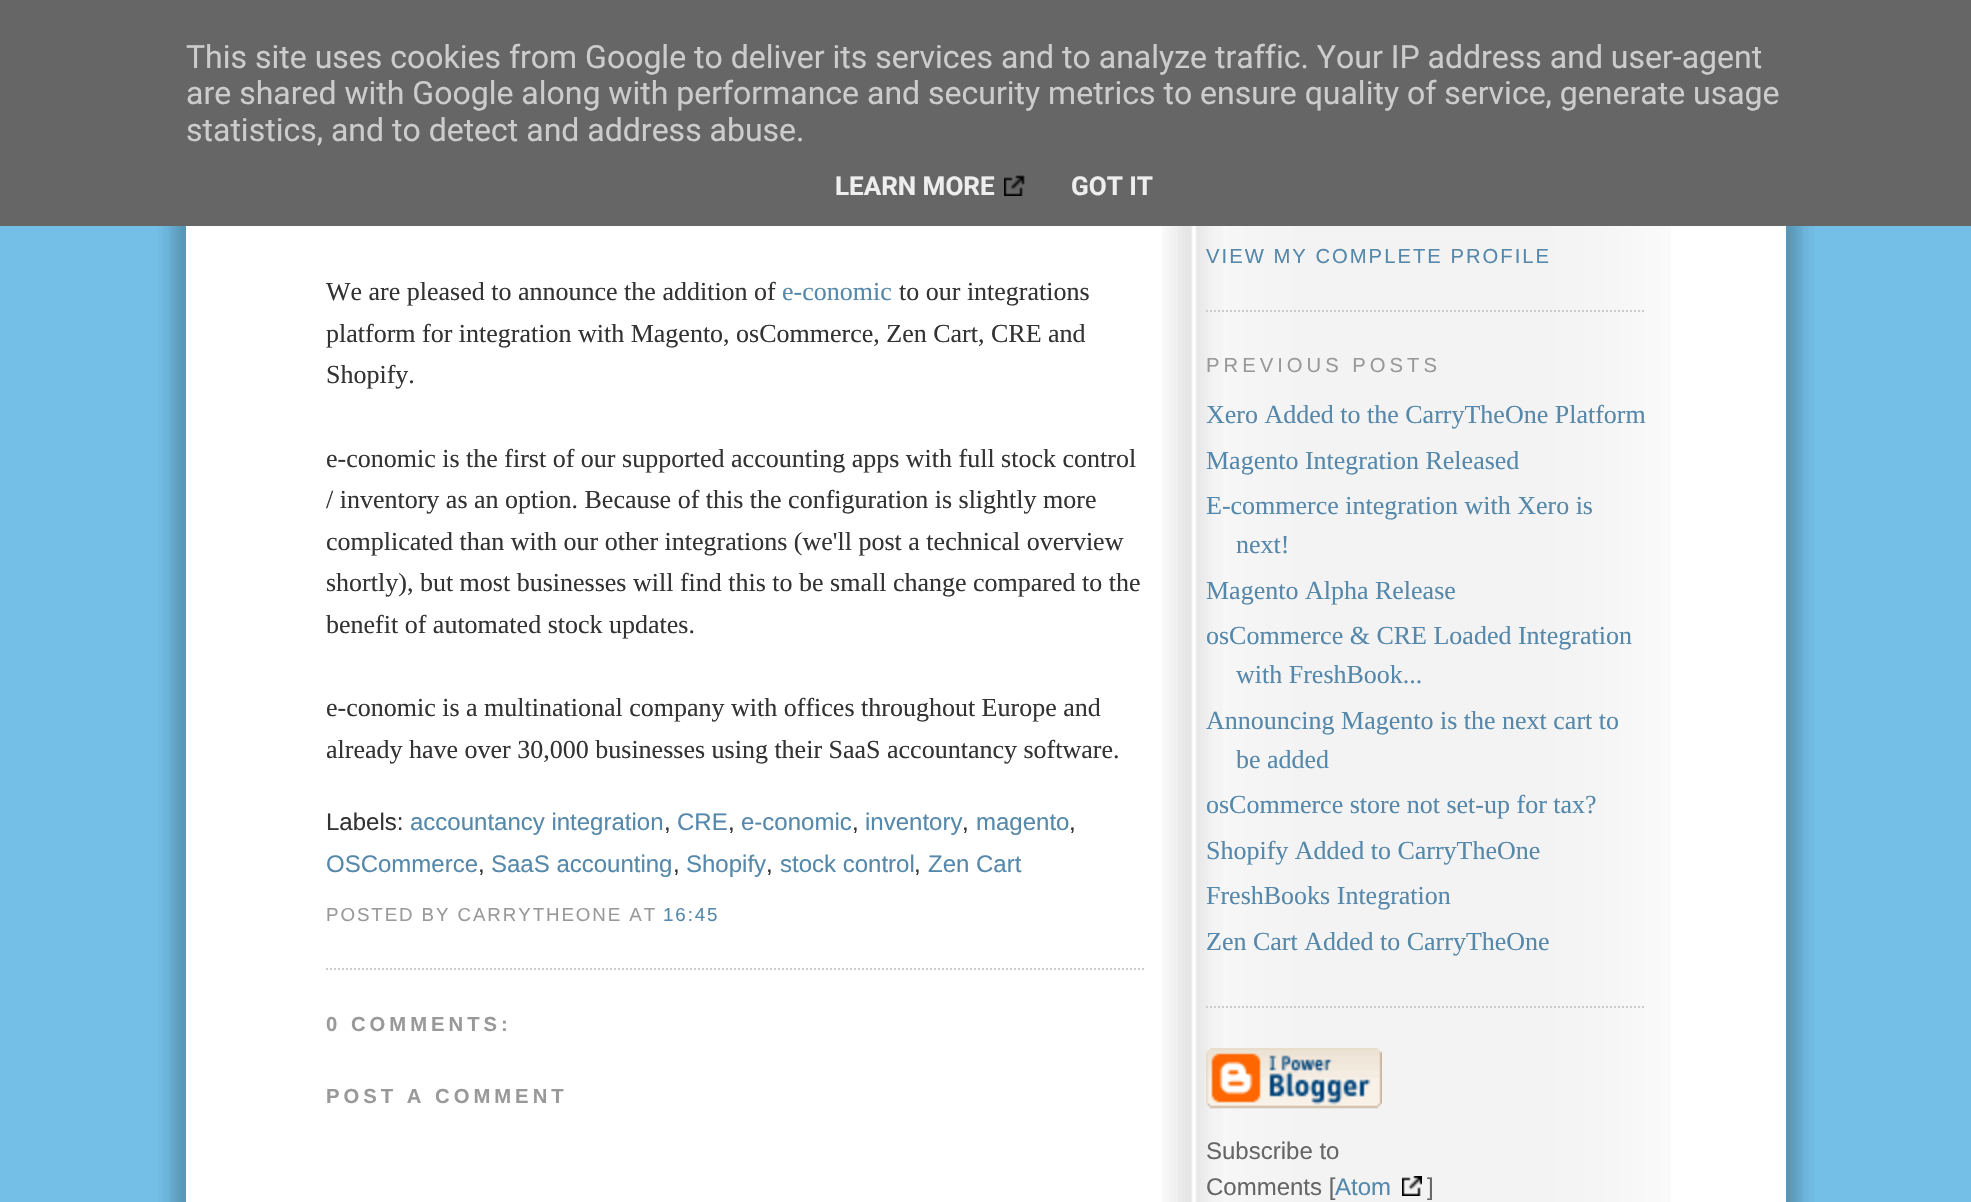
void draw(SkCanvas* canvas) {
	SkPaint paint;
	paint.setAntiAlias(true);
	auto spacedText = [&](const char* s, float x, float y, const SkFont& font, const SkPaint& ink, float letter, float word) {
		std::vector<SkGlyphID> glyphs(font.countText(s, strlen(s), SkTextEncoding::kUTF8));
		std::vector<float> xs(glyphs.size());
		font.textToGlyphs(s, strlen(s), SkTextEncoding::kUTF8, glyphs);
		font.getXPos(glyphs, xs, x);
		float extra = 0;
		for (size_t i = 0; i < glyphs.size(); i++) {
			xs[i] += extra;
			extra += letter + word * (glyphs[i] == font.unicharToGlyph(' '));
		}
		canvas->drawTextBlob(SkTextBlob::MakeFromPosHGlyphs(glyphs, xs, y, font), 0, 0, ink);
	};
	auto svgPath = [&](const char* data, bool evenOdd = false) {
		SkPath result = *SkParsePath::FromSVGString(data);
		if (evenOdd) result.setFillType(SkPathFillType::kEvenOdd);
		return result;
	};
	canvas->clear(0xff74bfe8);
	paint.setColor(0xff666666);
	canvas->drawRect(SkRect::MakeXYWH(0, 0, 1971, 226), paint);
	SkFont f1(fontMgr->matchFamilyStyle("Roboto", SkFontStyle::Normal()), 32);
	f1.setSubpixel(true);
	paint.setColor(0xffcccccc);
	canvas->drawString("This site uses cookies from Google to deliver its services and to analyze traffic. Your IP address and user-agent", 186, 68, f1, paint);
	canvas->drawString("are shared with Google along with performance and security metrics to ensure quality of service, generate usage", 186, 104, f1, paint);
	canvas->drawString("statistics, and to detect and address abuse.", 186, 141, f1, paint);
	SkFont f2(fontMgr->matchFamilyStyle("Roboto", SkFontStyle::Bold()), 26);
	f2.setSubpixel(true);
	paint.setColor(0xffeeeeee);
	canvas->drawString("LEARN MORE", 835, 195, f2, paint);
	canvas->drawImageRect(SkImages::DeferredFromEncodedData(SkData::MakeFromFileName("img1.png")), SkRect::MakeXYWH(1004, 175, 21, 21), SkSamplingOptions());
	canvas->drawString("GOT IT", 1071, 195, f2, paint);
	canvas->drawImageRect(SkImages::DeferredFromEncodedData(SkData::MakeFromFileName("img2.png")), SkRect::MakeXYWH(158, 226, 28, 976), SkSamplingOptions());
	paint.setColor(0xffffffff);
	canvas->drawRect(SkRect::MakeXYWH(186, 226, 1600, 976), paint);
	canvas->drawImageRect(SkImages::DeferredFromEncodedData(SkData::MakeFromFileName("img3.png")), SkRect::MakeXYWH(1162, 226, 509, 976), SkSamplingOptions());
	paint.setStroke(true);
	paint.setStrokeWidth(2);
	paint.setColor(0xffcccccc);
	paint.setPathEffect(SkDashPathEffect::Make({{2, 2}}, 0));
	canvas->drawPath(svgPath("M326 969H1146"), paint);
	paint.setPathEffect(nullptr);
	SkFont f3(fontMgr->matchFamilyStyle("Liberation Serif", SkFontStyle::Normal()), 26);
	f3.setSubpixel(true);
	paint.setStroke(false);
	paint.setColor(0xff333333);
	canvas->drawString("We are pleased to announce the addition of", 326, 300, f3, paint);
	paint.setColor(0xff5588aa);
	canvas->drawString("e-conomic", 782, 300, f3, paint);
	paint.setColor(0xff333333);
	canvas->drawString("to our integrations", 899, 300, f3, paint);
	canvas->drawString("platform for integration with Magento, osCommerce, Zen Cart, CRE and", 326, 342, f3, paint);
	canvas->drawString("Shopify.", 326, 383, f3, paint);
	canvas->drawString("e-conomic is the first of our supported accounting apps with full stock control", 326, 467, f3, paint);
	canvas->drawString("/ inventory as an option. Because of this the configuration is slightly more", 326, 508, f3, paint);
	canvas->drawString("complicated than with our other integrations (we'll post a technical overview", 326, 550, f3, paint);
	canvas->drawString("shortly), but most businesses will find this to be small change compared to the", 326, 591, f3, paint);
	canvas->drawString("benefit of automated stock updates.", 326, 633, f3, paint);
	canvas->drawString("e-conomic is a multinational company with offices throughout Europe and", 326, 716, f3, paint);
	canvas->drawString("already have over 30,000 businesses using their SaaS accountancy software.", 326, 758, f3, paint);
	SkFont f4(fontMgr->matchFamilyStyle("Liberation Sans", SkFontStyle::Normal()), 24);
	f4.setSubpixel(true);
	canvas->drawString("Labels:", 326, 830, f4, paint);
	paint.setColor(0xff5588aa);
	canvas->drawString("accountancy integration", 410, 830, f4, paint);
	paint.setColor(0xff333333);
	canvas->drawString(",", 664, 830, f4, paint);
	paint.setColor(0xff5588aa);
	canvas->drawString("CRE", 677, 830, f4, paint);
	paint.setColor(0xff333333);
	canvas->drawString(",", 728, 830, f4, paint);
	paint.setColor(0xff5588aa);
	canvas->drawString("e-conomic", 741, 830, f4, paint);
	paint.setColor(0xff333333);
	canvas->drawString(",", 852, 830, f4, paint);
	paint.setColor(0xff5588aa);
	canvas->drawString("inventory", 865, 830, f4, paint);
	paint.setColor(0xff333333);
	canvas->drawString(",", 962, 830, f4, paint);
	paint.setColor(0xff5588aa);
	canvas->drawString("magento", 976, 830, f4, paint);
	paint.setColor(0xff333333);
	canvas->drawString(",", 1069, 830, f4, paint);
	paint.setColor(0xff5588aa);
	canvas->drawString("OSCommerce", 326, 872, f4, paint);
	paint.setColor(0xff333333);
	canvas->drawString(",", 478, 872, f4, paint);
	paint.setColor(0xff5588aa);
	canvas->drawString("SaaS accounting", 491, 872, f4, paint);
	paint.setColor(0xff333333);
	canvas->drawString(",", 673, 872, f4, paint);
	paint.setColor(0xff5588aa);
	canvas->drawString("Shopify", 686, 872, f4, paint);
	paint.setColor(0xff333333);
	canvas->drawString(",", 766, 872, f4, paint);
	paint.setColor(0xff5588aa);
	canvas->drawString("stock control", 780, 872, f4, paint);
	paint.setColor(0xff333333);
	canvas->drawString(",", 914, 872, f4, paint);
	paint.setColor(0xff5588aa);
	canvas->drawString("Zen Cart", 928, 872, f4, paint);
	SkFont f5(fontMgr->matchFamilyStyle("Liberation Sans", SkFontStyle::Normal()), 18.75);
	f5.setSubpixel(true);
	paint.setColor(0xff999999);
	spacedText("POSTED BY CARRYTHEONE AT", 326, 921, f5, paint, 1.9, 0);
	paint.setColor(0xff5588aa);
	spacedText("16:45", 663, 921, f5, paint, 1.9, 0);
	SkFont f6(fontMgr->matchFamilyStyle("Liberation Sans", SkFontStyle::Bold()), 20.25);
	f6.setSubpixel(true);
	paint.setColor(0xff999999);
	spacedText("0 COMMENTS:", 326, 1031, f6, paint, 4, 0);
	spacedText("POST A COMMENT", 326, 1103, f6, paint, 4, 0);
	paint.setStroke(true);
	paint.setColor(0xffcccccc);
	paint.setPathEffect(SkDashPathEffect::Make({{2, 2}}, 0));
	canvas->drawPath(svgPath("M1206 311H1646"), paint);
	paint.setPathEffect(nullptr);
	SkFont f7(fontMgr->matchFamilyStyle("Liberation Sans", SkFontStyle::Normal()), 20.25);
	f7.setSubpixel(true);
	paint.setStroke(false);
	paint.setColor(0xff5588aa);
	spacedText("VIEW MY COMPLETE PROFILE", 1206, 263, f7, paint, 2, 0);
	paint.setColor(0xff999999);
	spacedText("PREVIOUS POSTS", 1206, 372, f7, paint, 4, 0);
	paint.setStroke(true);
	paint.setColor(0xffcccccc);
	paint.setPathEffect(SkDashPathEffect::Make({{2, 2}}, 0));
	canvas->drawPath(svgPath("M1206 1007H1646"), paint);
	paint.setPathEffect(nullptr);
	paint.setStroke(false);
	paint.setColor(0xff5588aa);
	canvas->drawString("Xero Added to the CarryTheOne Platform", 1206, 423, f3, paint);
	canvas->drawString("Magento Integration Released", 1206, 469, f3, paint);
	canvas->drawString("E-commerce integration with Xero is", 1206, 514, f3, paint);
	canvas->drawString("next!", 1236, 553, f3, paint);
	canvas->drawString("Magento Alpha Release", 1206, 599, f3, paint);
	canvas->drawString("osCommerce & CRE Loaded Integration", 1206, 644, f3, paint);
	canvas->drawString("with FreshBook...", 1236, 683, f3, paint);
	canvas->drawString("Announcing Magento is the next cart to", 1206, 729, f3, paint);
	canvas->drawString("be added", 1236, 768, f3, paint);
	canvas->drawString("osCommerce store not set-up for tax?", 1206, 813, f3, paint);
	canvas->drawString("Shopify Added to CarryTheOne", 1206, 859, f3, paint);
	canvas->drawString("FreshBooks Integration", 1206, 904, f3, paint);
	canvas->drawString("Zen Cart Added to CarryTheOne", 1206, 950, f3, paint);
	canvas->drawImageRect(SkImages::DeferredFromEncodedData(SkData::MakeFromFileName("img4.png")), SkRect::MakeXYWH(1206, 1048, 176, 61), SkSamplingOptions());
	paint.setColor(0xff666666);
	canvas->drawString("Subscribe to", 1206, 1159, f4, paint);
	canvas->drawString("Comments [", 1206, 1195, f4, paint);
	paint.setColor(0xff5588aa);
	canvas->drawString("Atom", 1335, 1195, f4, paint);
	canvas->drawImageRect(SkImages::DeferredFromEncodedData(SkData::MakeFromFileName("img5.png")), SkRect::MakeXYWH(1402, 1176, 20, 20), SkSamplingOptions());
	paint.setColor(0xff666666);
	canvas->drawString("]", 1427, 1195, f4, paint);
	canvas->drawImageRect(SkImages::DeferredFromEncodedData(SkData::MakeFromFileName("img6.png")), SkRect::MakeXYWH(1786, 226, 28, 976), SkSamplingOptions());
}
